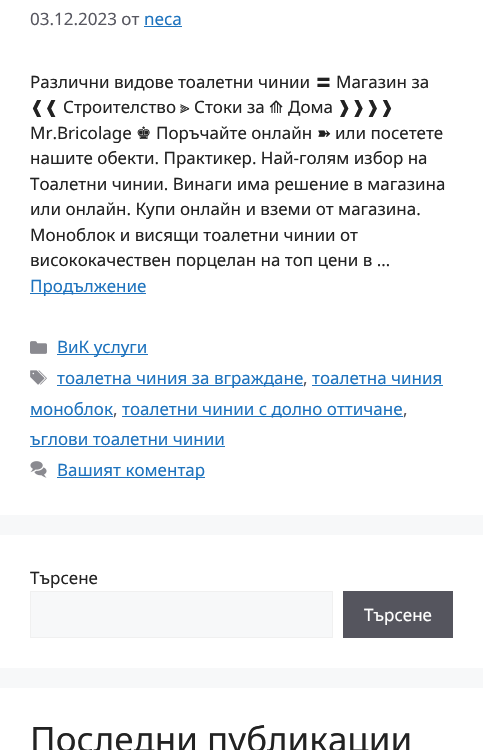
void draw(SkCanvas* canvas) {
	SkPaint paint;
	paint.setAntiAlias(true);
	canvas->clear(0xfff7f8f9);
	paint.setColor(0xffffffff);
	canvas->drawRect(SkRect::MakeXYWH(0, 0, 483, 515), paint);
	SkFont f1(fontMgr->matchFamilyStyle("Noto Sans", SkFontStyle::Normal()), 17);
	f1.setSubpixel(true);
	paint.setColor(0xff575760);
	canvas->drawString("03.12.2023 от", 30, 25, f1, paint);
	paint.setColor(0xff1e73be);
	canvas->drawString("neca", 144, 25, f1, paint);
	canvas->drawRect(SkRect::MakeXYWH(144, 26, 38, 1), paint);
	paint.setColor(0xff222222);
	canvas->drawString("Различни видове тоалетни чинии", 30, 88, f1, paint);
	SkFont f2(fontMgr->matchFamilyStyle("WenQuanYi Zen Hei", SkFontStyle(500, SkFontStyle::kNormal_Width, SkFontStyle::kUpright_Slant)), 17);
	f2.setSubpixel(true);
	canvas->drawString("〓", 315, 88, f2, paint);
	canvas->drawString("Магазин за", 336, 88, f1, paint);
	SkFont f3(fontMgr->matchFamilyStyle("DejaVu Sans", SkFontStyle::Normal()), 17);
	f3.setSubpixel(true);
	canvas->drawString("❰❰", 30, 113, f3, paint);
	canvas->drawString("Строителство", 63, 113, f1, paint);
	SkFont f4(fontMgr->matchFamilyStyle("FreeSerif", SkFontStyle::Normal()), 17);
	f4.setSubpixel(true);
	canvas->drawString("⫸", 180, 113, f4, paint);
	canvas->drawString("Стоки за", 194, 113, f1, paint);
	canvas->drawString("⟰", 269, 113, f3, paint);
	canvas->drawString("Дома", 288, 113, f1, paint);
	canvas->drawString("❱❱❱❱", 337, 113, f3, paint);
	canvas->drawString("Mr.Bricolage", 30, 139, f1, paint);
	canvas->drawString("♚", 136, 139, f3, paint);
	canvas->drawString("Поръчайте онлайн", 156, 139, f1, paint);
	canvas->drawString("➽", 317, 139, f3, paint);
	canvas->drawString("или посетете", 335, 139, f1, paint);
	canvas->drawString("нашите обекти. Практикер. Най-голям избор на", 30, 164, f1, paint);
	canvas->drawString("Тоалетни чинии. Винаги има решение в магазина", 30, 190, f1, paint);
	canvas->drawString("или онлайн. Купи онлайн и вземи от магазина.", 30, 215, f1, paint);
	canvas->drawString("Моноблок и висящи тоалетни чинии от", 30, 241, f1, paint);
	canvas->drawString("висококачествен порцелан на топ цени в …", 30, 266, f1, paint);
	paint.setColor(0xff1e73be);
	canvas->drawRect(SkRect::MakeXYWH(30, 293, 116, 1), paint);
	canvas->drawString("Продължение", 30, 292, f1, paint);
	canvas->drawImageRect(SkImages::DeferredFromEncodedData(SkData::MakeFromFileName("img1.png")), SkRect::MakeXYWH(30, 341, 17, 13), SkSamplingOptions());
	canvas->drawRect(SkRect::MakeXYWH(57, 354, 91, 1), paint);
	canvas->drawString("ВиК услуги", 57, 353, f1, paint);
	canvas->drawImageRect(SkImages::DeferredFromEncodedData(SkData::MakeFromFileName("img2.png")), SkRect::MakeXYWH(30, 370, 17, 15), SkSamplingOptions());
	canvas->drawRect(SkRect::MakeXYWH(57, 385, 246, 1), paint);
	canvas->drawString("тоалетна чиния за вграждане", 57, 384, f1, paint);
	paint.setColor(0xff575760);
	canvas->drawString(",", 303, 384, f1, paint);
	paint.setColor(0xff1e73be);
	canvas->drawString("тоалетна чиния", 312, 384, f1, paint);
	canvas->drawRect(SkRect::MakeXYWH(312, 385, 131, 1), paint);
	canvas->drawString("моноблок", 30, 415, f1, paint);
	canvas->drawRect(SkRect::MakeXYWH(30, 416, 83, 1), paint);
	paint.setColor(0xff575760);
	canvas->drawString(",", 113, 415, f1, paint);
	paint.setColor(0xff1e73be);
	canvas->drawRect(SkRect::MakeXYWH(122, 416, 281, 1), paint);
	canvas->drawString("тоалетни чинии с долно оттичане", 122, 415, f1, paint);
	paint.setColor(0xff575760);
	canvas->drawString(",", 403, 415, f1, paint);
	paint.setColor(0xff1e73be);
	canvas->drawString("ъглови тоалетни чинии", 30, 445, f1, paint);
	canvas->drawRect(SkRect::MakeXYWH(30, 446, 195, 1), paint);
	canvas->drawImageRect(SkImages::DeferredFromEncodedData(SkData::MakeFromFileName("img3.png")), SkRect::MakeXYWH(30, 461, 17, 17), SkSamplingOptions());
	canvas->drawRect(SkRect::MakeXYWH(57, 477, 148, 1), paint);
	canvas->drawString("Вашият коментар", 57, 476, f1, paint);
	paint.setColor(0xffffffff);
	canvas->drawRect(SkRect::MakeXYWH(0, 535, 483, 133), paint);
	paint.setColor(0xff222222);
	canvas->drawString("Търсене", 30, 584, f1, paint);
	paint.setColor(0xfff7f8f9);
	canvas->drawRect(SkRect::MakeXYWH(30.5, 591.5, 302, 46), paint);
	paint.setStroke(true);
	paint.setStrokeWidth(1);
	paint.setColor(0xfff0f0f0);
	canvas->drawRect(SkRect::MakeXYWH(30.5, 591.5, 302, 46), paint);
	paint.setStroke(false);
	paint.setColor(0xff55555e);
	canvas->drawRect(SkRect::MakeXYWH(343, 591, 110, 47), paint);
	paint.setColor(0xffffffff);
	canvas->drawString("Търсене", 364, 621, f1, paint);
	canvas->drawRect(SkRect::MakeXYWH(0, 688, 483, 62), paint);
	SkFont f5(fontMgr->matchFamilyStyle("Noto Sans", SkFontStyle::Normal()), 35);
	f5.setSubpixel(true);
	paint.setColor(0xff222222);
	canvas->drawString("Последни публикации", 30, 752, f5, paint);
}
